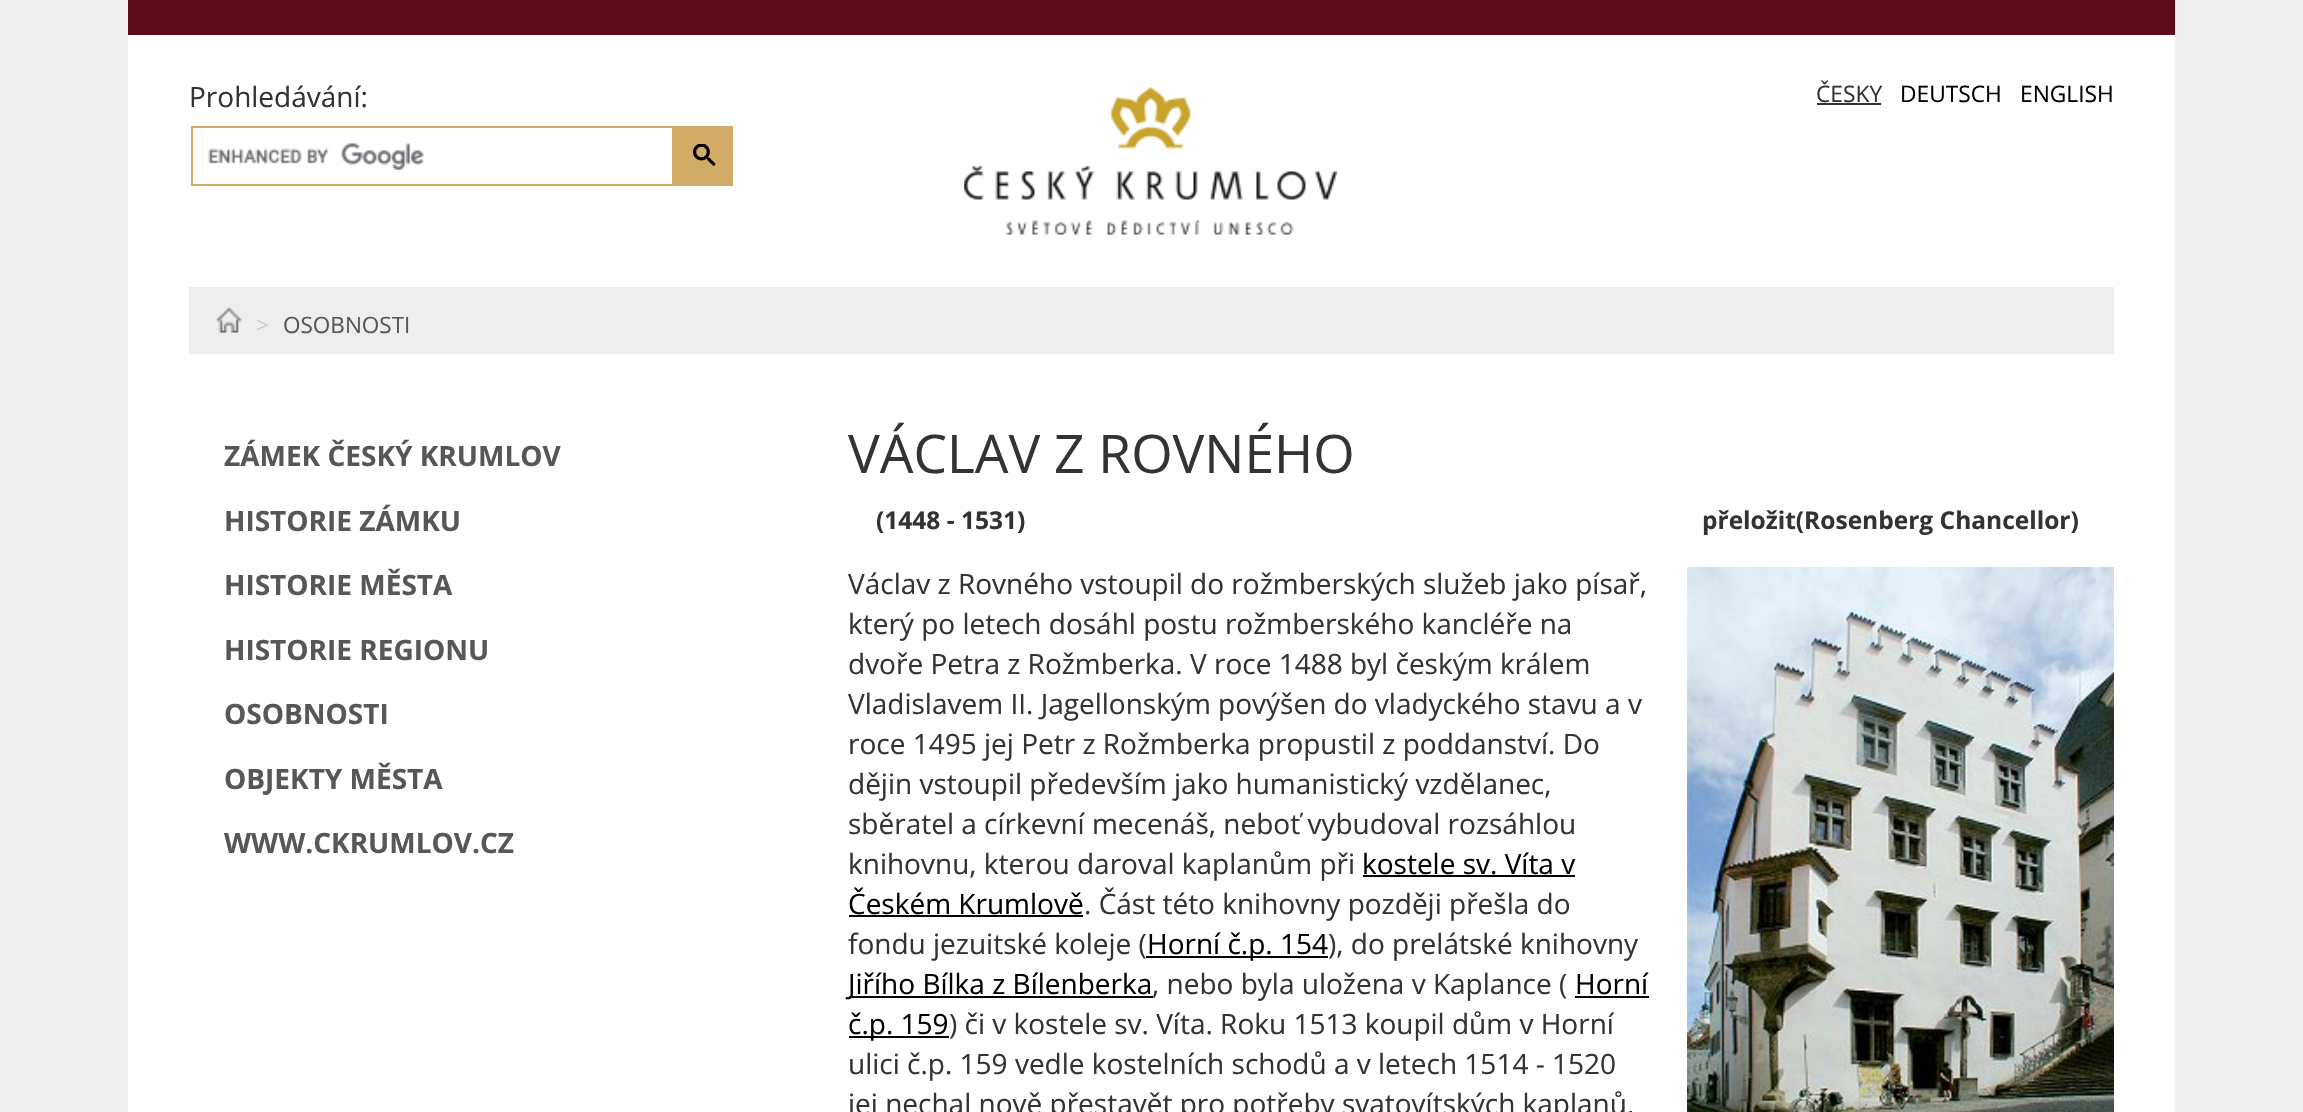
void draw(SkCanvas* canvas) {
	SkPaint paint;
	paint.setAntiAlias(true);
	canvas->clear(0xffeeeeee);
	paint.setColor(0xffffffff);
	canvas->drawRect(SkRect::MakeXYWH(128, 35, 2047, 1077), paint);
	paint.setColor(0xff5e0b1e);
	canvas->drawRect(SkRect::MakeXYWH(128, 0, 2047, 35), paint);
	SkFont f1(fontMgr->matchFamilyStyle("Open Sans", SkFontStyle::Normal()), 28);
	f1.setSubpixel(true);
	paint.setColor(0xff333333);
	canvas->drawString("Prohledávání:", 189, 107, f1, paint);
	paint.setStroke(true);
	paint.setStrokeWidth(2);
	paint.setColor(0xffd2ac67);
	canvas->drawRect(SkRect::MakeXYWH(192, 127, 481, 58), paint);
	canvas->drawImageRect(SkImages::DeferredFromEncodedData(SkData::MakeFromFileName("img1.png")), SkRect::MakeXYWH(208, 143, 216, 27), SkSamplingOptions());
	paint.setStroke(false);
	canvas->drawRect(SkRect::MakeXYWH(674, 126, 59, 60), paint);
	canvas->drawImageRect(SkImages::DeferredFromEncodedData(SkData::MakeFromFileName("img2.png")), SkRect::MakeXYWH(693, 144, 23, 22), SkSamplingOptions());
	canvas->drawImageRect(SkImages::DeferredFromEncodedData(SkData::MakeFromFileName("img3.png")), SkRect::MakeXYWH(964, 87, 373, 148), SkSamplingOptions());
	SkFont f2(fontMgr->matchFamilyStyle("Open Sans", SkFontStyle::Normal()), 22.75);
	f2.setSubpixel(true);
	paint.setColor(0xff333333);
	canvas->drawString("ČESKY", 1816, 102, f2, paint);
	canvas->drawRect(SkRect::MakeXYWH(1817, 103, 64, 2), paint);
	paint.setColor(0xff000000);
	canvas->drawString("DEUTSCH", 1900, 102, f2, paint);
	canvas->drawString("ENGLISH", 2020, 102, f2, paint);
	paint.setColor(0xffeeeeee);
	canvas->drawRect(SkRect::MakeXYWH(189, 287, 1925, 67), paint);
	canvas->drawImageRect(SkImages::DeferredFromEncodedData(SkData::MakeFromFileName("img4.png")), SkRect::MakeXYWH(215, 308, 27, 25), SkSamplingOptions());
	SkFont f3(fontMgr->matchFamilyStyle("Open Sans", SkFontStyle::Normal()), 22.5);
	f3.setSubpixel(true);
	paint.setColor(0xffcccccc);
	canvas->drawString(">", 256, 333, f3, paint);
	paint.setColor(0xff575757);
	canvas->drawString("OSOBNOSTI", 283, 333, f3, paint);
	SkFont f4(fontMgr->matchFamilyStyle("Open Sans", SkFontStyle::Bold()), 28);
	f4.setSubpixel(true);
	canvas->drawString("ZÁMEK ČESKÝ KRUMLOV", 224, 466, f4, paint);
	canvas->drawString("HISTORIE ZÁMKU", 224, 531, f4, paint);
	canvas->drawString("HISTORIE MĚSTA", 224, 595, f4, paint);
	canvas->drawString("HISTORIE REGIONU", 224, 660, f4, paint);
	canvas->drawString("OSOBNOSTI", 224, 724, f4, paint);
	canvas->drawString("OBJEKTY MĚSTA", 224, 789, f4, paint);
	canvas->drawString("WWW.CKRUMLOV.CZ", 224, 853, f4, paint);
	SkFont f5(fontMgr->matchFamilyStyle("Open Sans", SkFontStyle::Normal()), 53.25);
	f5.setSubpixel(true);
	paint.setColor(0xff333333);
	canvas->drawString("VÁCLAV Z ROVNÉHO", 848, 473, f5, paint);
	SkFont f6(fontMgr->matchFamilyStyle("Open Sans", SkFontStyle::Bold()), 24.5);
	f6.setSubpixel(true);
	canvas->drawString("(1448 - 1531)", 876, 529, f6, paint);
	canvas->drawString("přeložit(Rosenberg Chancellor)", 1702, 529, f6, paint);
	canvas->drawString("Václav z Rovného vstoupil do rožmberských služeb jako písař,", 848, 594, f1, paint);
	canvas->drawImageRect(SkImages::DeferredFromEncodedData(SkData::MakeFromFileName("img5.png")), SkRect::MakeXYWH(1687, 567, 427, 545), SkSamplingOptions());
	canvas->drawString("který po letech dosáhl postu rožmberského kancléře na", 848, 634, f1, paint);
	canvas->drawString("dvoře Petra z Rožmberka. V roce 1488 byl českým králem", 848, 674, f1, paint);
	canvas->drawString("Vladislavem II. Jagellonským povýšen do vladyckého stavu a v", 848, 714, f1, paint);
	canvas->drawString("roce 1495 jej Petr z Rožmberka propustil z poddanství. Do", 848, 754, f1, paint);
	canvas->drawString("dějin vstoupil především jako humanistický vzdělanec,", 848, 794, f1, paint);
	canvas->drawString("sběratel a církevní mecenáš, neboť vybudoval rozsáhlou", 848, 834, f1, paint);
	canvas->drawString("knihovnu, kterou daroval kaplanům při", 848, 874, f1, paint);
	paint.setColor(0xff000000);
	canvas->drawString("kostele sv. Víta v", 1362, 874, f1, paint);
	canvas->drawRect(SkRect::MakeXYWH(1363, 875, 212, 2), paint);
	canvas->drawString("Českém Krumlově", 848, 914, f1, paint);
	canvas->drawRect(SkRect::MakeXYWH(849, 915, 234, 2), paint);
	paint.setColor(0xff333333);
	canvas->drawString(". Část této knihovny později přešla do", 1084, 914, f1, paint);
	canvas->drawString("fondu jezuitské koleje (", 848, 954, f1, paint);
	paint.setColor(0xff000000);
	canvas->drawRect(SkRect::MakeXYWH(1146, 956, 182, 2), paint);
	canvas->drawString("Horní č.p. 154", 1147, 954, f1, paint);
	paint.setColor(0xff333333);
	canvas->drawString("), do prelátské knihovny", 1328, 954, f1, paint);
	paint.setColor(0xff000000);
	canvas->drawRect(SkRect::MakeXYWH(849, 996, 304, 2), paint);
	canvas->drawString("Jiřího Bílka z Bílenberka", 848, 994, f1, paint);
	paint.setColor(0xff333333);
	canvas->drawString(", nebo byla uložena v Kaplance (", 1152, 994, f1, paint);
	paint.setColor(0xff000000);
	canvas->drawString("Horní", 1575, 994, f1, paint);
	canvas->drawRect(SkRect::MakeXYWH(1575, 996, 74, 2), paint);
	canvas->drawRect(SkRect::MakeXYWH(849, 1036, 100, 2), paint);
	canvas->drawString("č.p. 159", 848, 1034, f1, paint);
	paint.setColor(0xff333333);
	canvas->drawString(") či v kostele sv. Víta. Roku 1513 koupil dům v Horní", 949, 1034, f1, paint);
	canvas->drawString("ulici č.p. 159 vedle kostelních schodů a v letech 1514 - 1520", 848, 1074, f1, paint);
	canvas->drawString("jej nechal nově přestavět pro potřeby svatovítských kaplanů.", 848, 1114, f1, paint);
}
